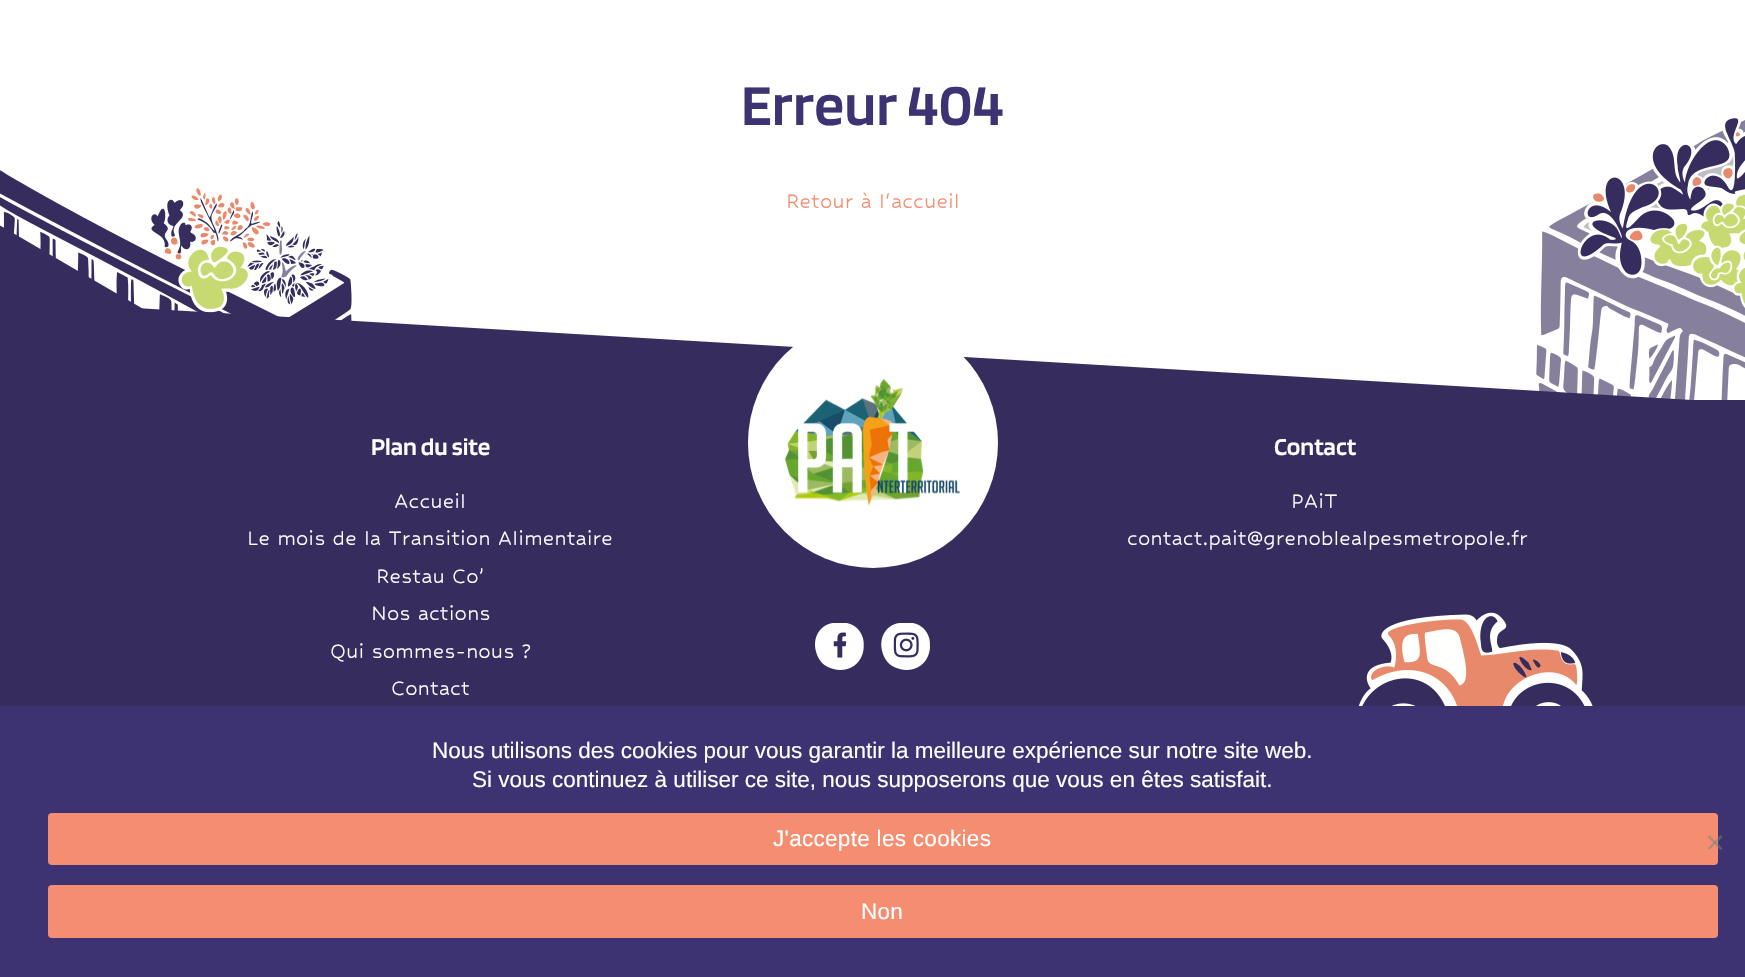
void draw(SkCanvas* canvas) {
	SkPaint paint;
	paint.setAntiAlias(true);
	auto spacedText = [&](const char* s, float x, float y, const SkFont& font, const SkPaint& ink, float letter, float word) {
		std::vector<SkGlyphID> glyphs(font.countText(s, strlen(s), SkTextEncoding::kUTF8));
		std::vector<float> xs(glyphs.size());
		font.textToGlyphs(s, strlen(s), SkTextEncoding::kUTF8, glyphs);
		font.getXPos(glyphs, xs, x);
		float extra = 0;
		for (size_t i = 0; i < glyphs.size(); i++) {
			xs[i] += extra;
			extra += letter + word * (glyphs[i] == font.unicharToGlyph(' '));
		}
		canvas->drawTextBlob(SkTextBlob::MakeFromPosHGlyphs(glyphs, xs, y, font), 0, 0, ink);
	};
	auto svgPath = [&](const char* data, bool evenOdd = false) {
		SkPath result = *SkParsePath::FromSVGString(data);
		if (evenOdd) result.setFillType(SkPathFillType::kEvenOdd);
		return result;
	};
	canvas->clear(0xffffffff);
	SkFont f1(fontMgr->matchFamilyStyle("Blinker", SkFontStyle(600, SkFontStyle::kNormal_Width, SkFontStyle::kUpright_Slant)), 60);
	f1.setSubpixel(true);
	paint.setColor(0xff3e3372);
	canvas->drawString("Erreur 404", 741, 125, f1, paint);
	SkFont f2(fontMgr->matchFamilyStyle("Hubballi", SkFontStyle::Normal()), 25);
	f2.setSubpixel(true);
	paint.setColor(0xfff58e71);
	canvas->drawString("Retour à l'accueil", 786, 208, f2, paint);
	canvas->drawImageRect(SkImages::DeferredFromEncodedData(SkData::MakeFromFileName("img1.png")), SkRect::MakeXYWH(0, 170, 356, 151), SkSamplingOptions());
	canvas->drawImageRect(SkImages::DeferredFromEncodedData(SkData::MakeFromFileName("img2.png")), SkRect::MakeXYWH(1536, 118, 209, 282), SkSamplingOptions());
	paint.setColor(0xff362d5e);
	canvas->drawRect(SkRect::MakeXYWH(0, 400, 1745, 306), paint);
	canvas->drawPath(svgPath("M1692 400H0V300Z"), paint);
	SkFont f3(fontMgr->matchFamilyStyle("Blinker", SkFontStyle(600, SkFontStyle::kNormal_Width, SkFontStyle::kUpright_Slant)), 25);
	f3.setSubpixel(true);
	paint.setColor(0xffffffff);
	canvas->drawString("Plan du site", 371, 455, f3, paint);
	canvas->drawString("Accueil", 394, 508, f2, paint);
	canvas->drawString("Le mois de la Transition Alimentaire", 247, 545, f2, paint);
	canvas->drawString("Restau Co’", 376, 583, f2, paint);
	canvas->drawString("Nos actions", 371, 620, f2, paint);
	canvas->drawString("Qui sommes-nous ?", 330, 658, f2, paint);
	canvas->drawString("Contact", 391, 695, f2, paint);
	canvas->drawCircle(873, 443, 125, paint);
	canvas->drawImageRect(SkImages::DeferredFromEncodedData(SkData::MakeFromFileName("img3.png")), SkRect::MakeXYWH(785, 378, 175, 128), SkSamplingOptions());
	canvas->drawImageRect(SkImages::DeferredFromEncodedData(SkData::MakeFromFileName("img4.png")), SkRect::MakeXYWH(815, 623, 49, 47), SkSamplingOptions());
	canvas->drawImageRect(SkImages::DeferredFromEncodedData(SkData::MakeFromFileName("img5.png")), SkRect::MakeXYWH(881, 623, 49, 47), SkSamplingOptions());
	canvas->drawString("Contact", 1274, 455, f3, paint);
	canvas->drawString("PAiT", 1291, 508, f2, paint);
	canvas->drawString("contact.pait@grenoblealpesmetropole.fr", 1127, 545, f2, paint);
	canvas->drawImageRect(SkImages::DeferredFromEncodedData(SkData::MakeFromFileName("img6.png")), SkRect::MakeXYWH(1358, 612, 235, 94), SkSamplingOptions());
	paint.setColor(0xff3e3372);
	canvas->drawRect(SkRect::MakeXYWH(0, 706, 1745, 271), paint);
	SkFont f4(fontMgr->matchFamilyStyle("Liberation Sans", SkFontStyle::Normal()), 22.5);
	f4.setSubpixel(true);
	paint.setColor(0xffffffff);
	canvas->drawString("Nous utilisons des cookies pour vous garantir la meilleure expérience sur notre site web.", 432, 758, f4, paint);
	canvas->drawString("Si vous continuez à utiliser ce site, nous supposerons que vous en êtes satisfait.", 472, 787, f4, paint);
	paint.setColor(0xfff58e71);
	canvas->drawRoundRect(SkRect::MakeXYWH(48, 813, 1670, 52), 4, 4, paint);
	paint.setColor(0xffffffff);
	spacedText("J'accepte les cookies", 773, 846, f4, paint, 0.3, 0);
	paint.setColor(0xfff58e71);
	canvas->drawRoundRect(SkRect::MakeXYWH(48, 885, 1670, 53), 4, 4, paint);
	paint.setColor(0xffffffff);
	spacedText("Non", 861, 919, f4, paint, 0.3, 0);
	paint.setColor(0x80808080);
	canvas->drawPath(svgPath("M1720.5 835L1722.5 837L1709.5 850L1707.5 848.5Z"), paint);
	canvas->drawPath(svgPath("M1707.5 837L1709.5 835L1722.5 848.5L1720.5 850Z"), paint);
}
